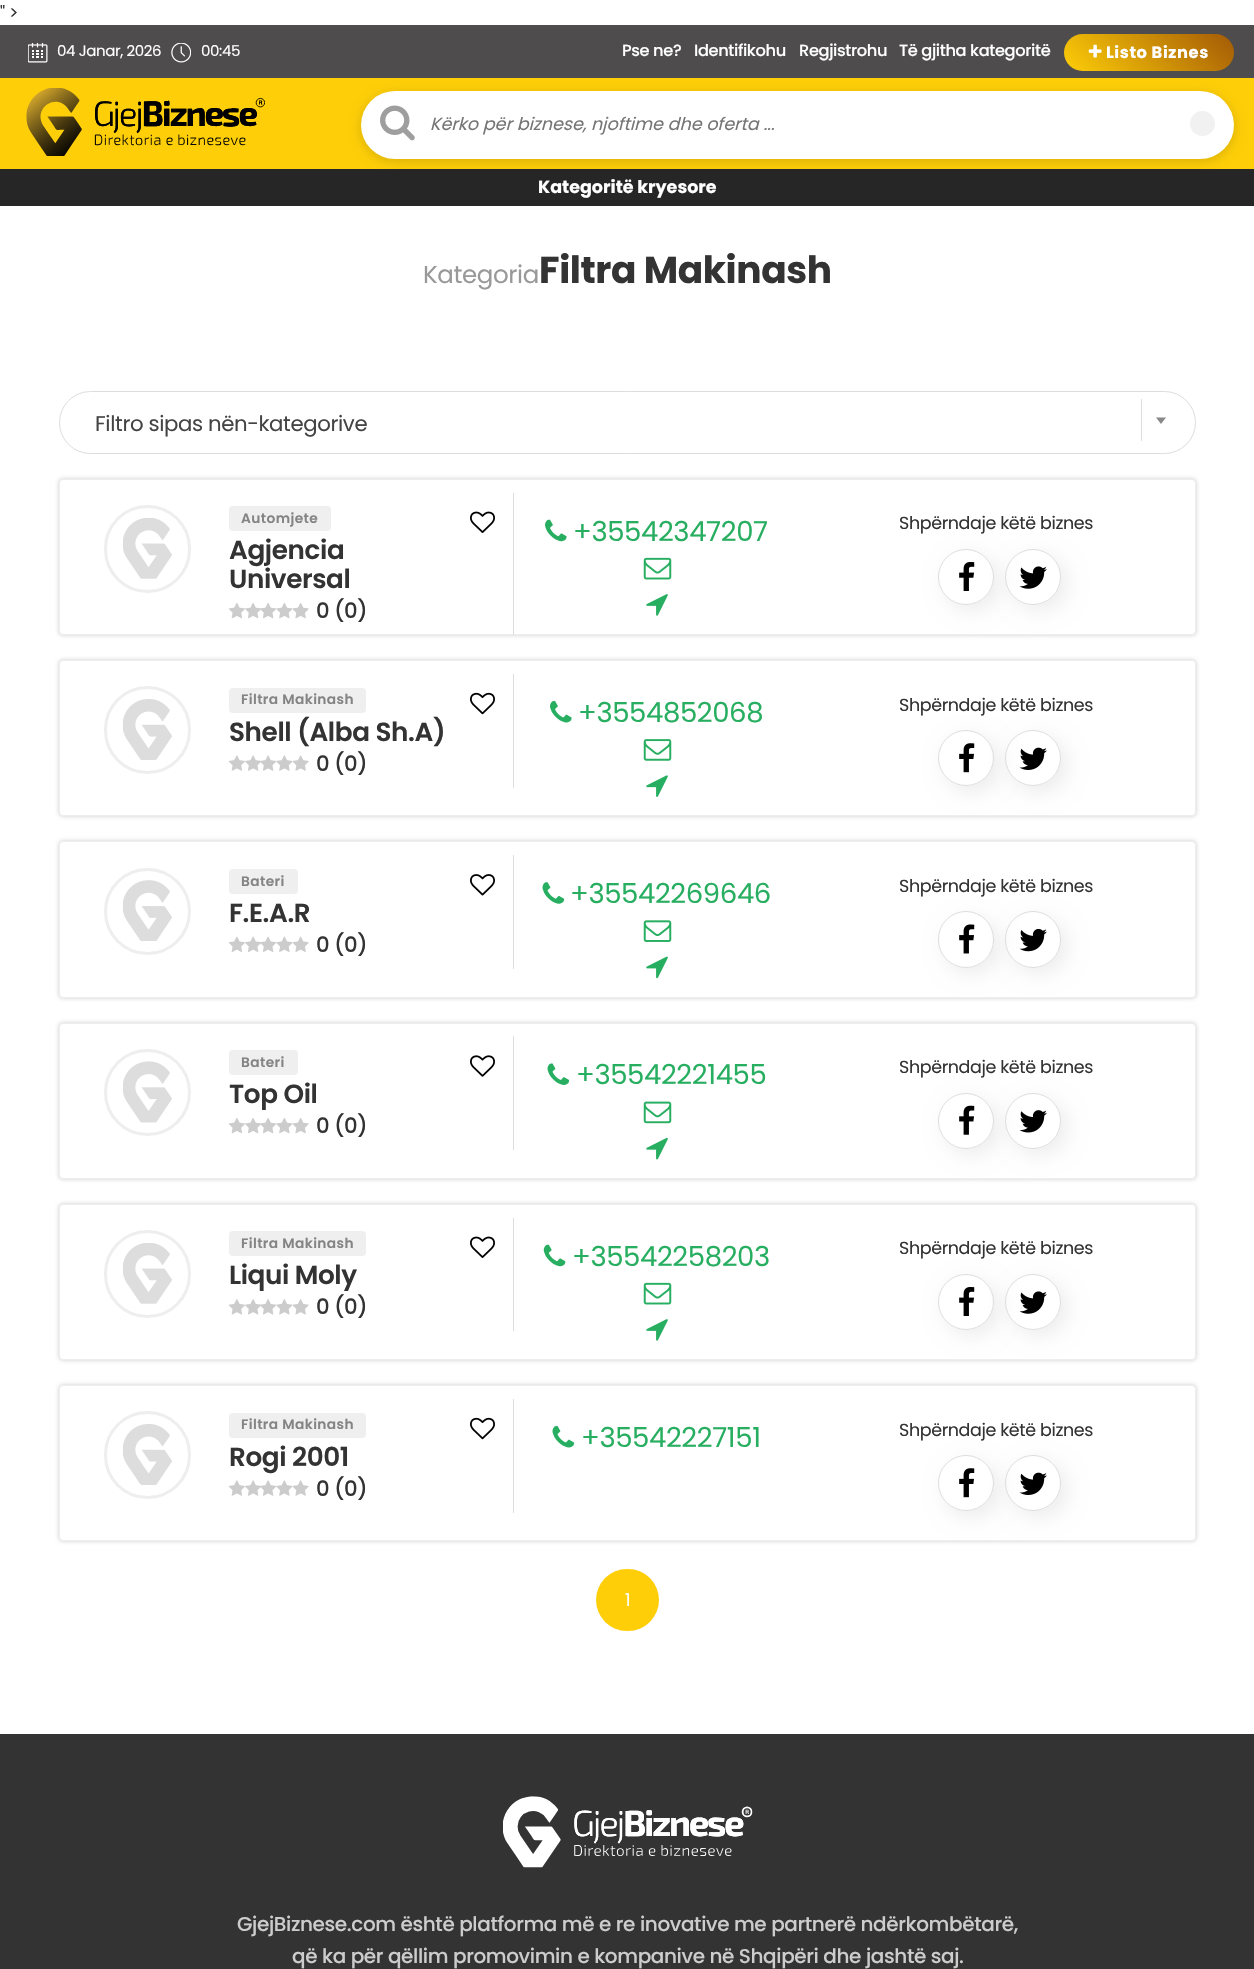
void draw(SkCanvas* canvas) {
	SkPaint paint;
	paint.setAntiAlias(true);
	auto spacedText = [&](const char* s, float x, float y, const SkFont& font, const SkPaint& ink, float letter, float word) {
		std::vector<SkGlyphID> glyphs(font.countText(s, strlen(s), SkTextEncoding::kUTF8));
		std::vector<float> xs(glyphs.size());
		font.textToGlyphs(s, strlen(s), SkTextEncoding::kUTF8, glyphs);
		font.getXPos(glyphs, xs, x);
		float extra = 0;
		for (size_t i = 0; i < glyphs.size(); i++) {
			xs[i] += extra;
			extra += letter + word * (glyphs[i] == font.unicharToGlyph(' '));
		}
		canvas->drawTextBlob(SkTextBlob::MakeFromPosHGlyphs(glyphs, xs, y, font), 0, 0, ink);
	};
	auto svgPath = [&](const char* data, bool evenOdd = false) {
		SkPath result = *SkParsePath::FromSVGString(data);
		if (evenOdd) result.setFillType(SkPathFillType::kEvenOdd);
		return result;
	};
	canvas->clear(0xffffffff);
	SkFont f1(fontMgr->matchFamilyStyle("Poppins", SkFontStyle::Normal()), 17.5);
	f1.setSubpixel(true);
	paint.setColor(0xff333333);
	spacedText("\" >", 0, 19, f1, paint, -0.38, 0);
	paint.setColor(0xff4e4c4c);
	canvas->drawRect(SkRect::MakeXYWH(0, 25, 1254, 53), paint);
	canvas->drawImageRect(SkImages::DeferredFromEncodedData(SkData::MakeFromFileName("img1.png")), SkRect::MakeXYWH(28, 43, 20, 20), SkSamplingOptions());
	SkFont f2(fontMgr->matchFamilyStyle("Poppins", SkFontStyle::Normal()), 15);
	f2.setSubpixel(true);
	paint.setColor(0xffffffff);
	spacedText("04 Janar, 2026", 57, 56, f2, paint, -0.38, 0);
	canvas->drawImageRect(SkImages::DeferredFromEncodedData(SkData::MakeFromFileName("img2.png")), SkRect::MakeXYWH(171, 43, 20, 20), SkSamplingOptions());
	spacedText("00:45", 201, 56, f2, paint, -0.38, 0);
	SkFont f3(fontMgr->matchFamilyStyle("Poppins", SkFontStyle(500, SkFontStyle::kNormal_Width, SkFontStyle::kUpright_Slant)), 16.25);
	f3.setSubpixel(true);
	spacedText("Pse ne?", 622, 56, f3, paint, -0.38, 0);
	spacedText("Identifikohu", 694, 56, f3, paint, -0.38, 0);
	spacedText("Regjistrohu", 799, 56, f3, paint, -0.38, 0);
	spacedText("Të gjitha kategoritë", 899, 56, f3, paint, -0.38, 0);
	{
		const SkColor colors[] = {0xfffece08, 0xffa35a06};
		const float stops[] = {0, 1};
		const SkPoint ends[] = {{1097, 104}, {1201, 0.6}};
		paint.setShader(SkGradientShader::MakeLinear(ends, colors, stops, 2, SkTileMode::kClamp));
		paint.setAlpha(255);
	}
	canvas->drawRoundRect(SkRect::MakeXYWH(1064, 34, 170, 37), 18.5, 18.5, paint);
	canvas->drawImageRect(SkImages::DeferredFromEncodedData(SkData::MakeFromFileName("img3.png")), SkRect::MakeXYWH(1088, 44, 14, 14), SkSamplingOptions());
	SkFont f4(fontMgr->matchFamilyStyle("Poppins", SkFontStyle::Bold()), 16.25);
	f4.setSubpixel(true);
	paint.setShader(nullptr);
	paint.setColor(0xffffffff);
	spacedText("Listo Biznes", 1106, 58, f4, paint, 0.6, 0);
	paint.setColor(0xfffece08);
	canvas->drawRect(SkRect::MakeXYWH(0, 78, 1254, 91), paint);
	canvas->drawImageRect(SkImages::DeferredFromEncodedData(SkData::MakeFromFileName("img4.png")), SkRect::MakeXYWH(26, 88, 239, 68), SkSamplingOptions());
	paint.setColor(0x26000000);
	paint.setMaskFilter(SkMaskFilter::MakeBlur(kNormal_SkBlurStyle, 6));
	canvas->drawRoundRect(SkRect::MakeXYWH(361, 94, 873, 67), 33.5, 33.5, paint);
	paint.setMaskFilter(nullptr);
	paint.setColor(0xffffffff);
	canvas->drawRoundRect(SkRect::MakeXYWH(361, 91, 873, 68), 34, 34, paint);
	canvas->drawImageRect(SkImages::DeferredFromEncodedData(SkData::MakeFromFileName("img5.png")), SkRect::MakeXYWH(380, 105, 35, 36), SkSamplingOptions());
	SkFont f5(fontMgr->matchFamilyStyle("Poppins", SkFontStyle::Italic()), 17.5);
	f5.setSubpixel(true);
	paint.setColor(0xff757575);
	canvas->drawString("Kërko për biznese, njoftime dhe oferta ...", 430, 130, f5, paint);
	paint.setColor(0xfff1f1f1);
	canvas->drawCircle(1202.5, 123.5, 12.5, paint);
	paint.setColor(0xd9000000);
	canvas->drawRect(SkRect::MakeXYWH(0, 169, 1254, 37), paint);
	SkFont f6(fontMgr->matchFamilyStyle("Poppins", SkFontStyle::Bold()), 17.5);
	f6.setSubpixel(true);
	paint.setColor(0xffffffff);
	canvas->drawString("Kategoritë kryesore", 538, 193, f6, paint);
	SkFont f7(fontMgr->matchFamilyStyle("Poppins", SkFontStyle::Normal()), 24.5);
	f7.setSubpixel(true);
	paint.setColor(0xff999999);
	spacedText("Kategoria", 423, 283, f7, paint, -0.38, 0);
	SkFont f8(fontMgr->matchFamilyStyle("Poppins", SkFontStyle::Bold()), 37.5);
	f8.setSubpixel(true);
	paint.setColor(0xff333333);
	spacedText("Filtra Makinash", 539, 283, f8, paint, -0.38, 0);
	paint.setStroke(true);
	paint.setStrokeWidth(1);
	paint.setColor(0xffdddddd);
	canvas->drawRoundRect(SkRect::MakeXYWH(59.5, 391.5, 1136, 62), 31, 31, paint);
	SkFont f9(fontMgr->matchFamilyStyle("Poppins", SkFontStyle::Normal()), 21.25);
	f9.setSubpixel(true);
	paint.setStroke(false);
	paint.setColor(0xff444444);
	spacedText("Filtro sipas nën-kategorive", 95, 431, f9, paint, -0.38, 0);
	paint.setColor(0xffdddddd);
	canvas->drawRect(SkRect::MakeXYWH(1141, 399, 1, 42), paint);
	paint.setColor(0xff888888);
	canvas->drawPath(svgPath("M1156 417.5H1166L1161 424Z"), paint);
	paint.setColor(0x33000000);
	paint.setMaskFilter(SkMaskFilter::MakeBlur(kNormal_SkBlurStyle, 2));
	canvas->drawRoundRect(SkRect::MakeXYWH(59, 479, 1137, 156), 4, 4, paint);
	paint.setMaskFilter(nullptr);
	paint.setColor(0xffffffff);
	canvas->drawRoundRect(SkRect::MakeXYWH(59.5, 479.5, 1136, 155), 3.5, 3.5, paint);
	paint.setStroke(true);
	paint.setColor(0xffeeeeee);
	canvas->drawRoundRect(SkRect::MakeXYWH(59.5, 479.5, 1136, 155), 3.5, 3.5, paint);
	canvas->drawImageRect(SkImages::DeferredFromEncodedData(SkData::MakeFromFileName("img6.png")), SkRect::MakeXYWH(123, 518, 49, 61), SkSamplingOptions());
	paint.setStrokeWidth(3);
	canvas->drawRoundRect(SkRect::MakeXYWH(105.5, 506.5, 84, 85), 42, 42, paint);
	paint.setStroke(false);
	paint.setColor(0xffdddddd);
	canvas->drawRect(SkRect::MakeXYWH(513, 493, 1, 142), paint);
	paint.setColor(0xffefefef);
	canvas->drawRoundRect(SkRect::MakeXYWH(229, 506, 102, 25), 4, 4, paint);
	SkFont f10(fontMgr->matchFamilyStyle("Poppins", SkFontStyle(600, SkFontStyle::kNormal_Width, SkFontStyle::kUpright_Slant)), 13.75);
	f10.setSubpixel(true);
	paint.setColor(0xff848484);
	spacedText("Automjete", 241, 523, f10, paint, 0.4, 0);
	canvas->drawImageRect(SkImages::DeferredFromEncodedData(SkData::MakeFromFileName("img7.png")), SkRect::MakeXYWH(470, 511, 25, 22), SkSamplingOptions());
	SkFont f11(fontMgr->matchFamilyStyle("Poppins", SkFontStyle(600, SkFontStyle::kNormal_Width, SkFontStyle::kUpright_Slant)), 26.25);
	f11.setSubpixel(true);
	paint.setColor(0xff333333);
	spacedText("Agjencia", 229, 559, f11, paint, -0.38, 0);
	spacedText("Universal", 229, 588, f11, paint, -0.38, 0);
	canvas->drawImageRect(SkImages::DeferredFromEncodedData(SkData::MakeFromFileName("img8.png")), SkRect::MakeXYWH(228, 603, 17, 16), SkSamplingOptions());
	canvas->drawImageRect(SkImages::DeferredFromEncodedData(SkData::MakeFromFileName("img9.png")), SkRect::MakeXYWH(245, 603, 17, 16), SkSamplingOptions());
	canvas->drawImageRect(SkImages::DeferredFromEncodedData(SkData::MakeFromFileName("img10.png")), SkRect::MakeXYWH(260, 603, 17, 16), SkSamplingOptions());
	canvas->drawImageRect(SkImages::DeferredFromEncodedData(SkData::MakeFromFileName("img11.png")), SkRect::MakeXYWH(276, 603, 17, 16), SkSamplingOptions());
	canvas->drawImageRect(SkImages::DeferredFromEncodedData(SkData::MakeFromFileName("img12.png")), SkRect::MakeXYWH(292, 603, 17, 16), SkSamplingOptions());
	SkFont f12(fontMgr->matchFamilyStyle("Poppins", SkFontStyle(500, SkFontStyle::kNormal_Width, SkFontStyle::kUpright_Slant)), 21.25);
	f12.setSubpixel(true);
	spacedText("0", 316, 618, f12, paint, -0.38, 0);
	spacedText("(0)", 334, 618, f12, paint, -0.38, 0);
	canvas->drawImageRect(SkImages::DeferredFromEncodedData(SkData::MakeFromFileName("img13.png")), SkRect::MakeXYWH(545, 519, 22, 23), SkSamplingOptions());
	SkFont f13(fontMgr->matchFamilyStyle("Poppins", SkFontStyle::Normal()), 27.5);
	f13.setSubpixel(true);
	paint.setColor(0xff27ae60);
	spacedText("+35542347207", 573, 541, f13, paint, -0.38, 0);
	canvas->drawImageRect(SkImages::DeferredFromEncodedData(SkData::MakeFromFileName("img14.png")), SkRect::MakeXYWH(643, 557, 29, 23), SkSamplingOptions());
	canvas->drawImageRect(SkImages::DeferredFromEncodedData(SkData::MakeFromFileName("img15.png")), SkRect::MakeXYWH(646, 594, 22, 22), SkSamplingOptions());
	paint.setColor(0xff333333);
	spacedText("Shpërndaje këtë biznes", 899, 529, f1, paint, -0.38, 0);
	canvas->save();
	canvas->clipPath(svgPath("M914 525H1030V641H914ZM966 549C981.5 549 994 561.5 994 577C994 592.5 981.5 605 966 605C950.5 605 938 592.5 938 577C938 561.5 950.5 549 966 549Z", true), true);
	paint.setColor(0x12000000);
	paint.setMaskFilter(SkMaskFilter::MakeBlur(kNormal_SkBlurStyle, 9.5));
	canvas->drawRoundRect(SkRect::MakeXYWH(944, 555, 56, 56), 28, 28, paint);
	paint.setMaskFilter(nullptr);
	canvas->restore();
	paint.setStroke(true);
	paint.setStrokeWidth(1);
	paint.setColor(0xffdddddd);
	canvas->drawCircle(966, 577, 27.5, paint);
	canvas->drawImageRect(SkImages::DeferredFromEncodedData(SkData::MakeFromFileName("img16.png")), SkRect::MakeXYWH(959, 562, 16, 29), SkSamplingOptions());
	canvas->save();
	canvas->clipPath(svgPath("M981 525H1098V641H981ZM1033 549C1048.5 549 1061 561.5 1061 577C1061 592.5 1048.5 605 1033 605C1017.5 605 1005 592.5 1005 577C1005 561.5 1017.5 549 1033 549Z", true), true);
	paint.setStroke(false);
	paint.setColor(0x12000000);
	paint.setMaskFilter(SkMaskFilter::MakeBlur(kNormal_SkBlurStyle, 9.5));
	canvas->drawRoundRect(SkRect::MakeXYWH(1011, 555, 57, 56), 28, 28, paint);
	paint.setMaskFilter(nullptr);
	canvas->restore();
	paint.setStroke(true);
	paint.setColor(0xffdddddd);
	canvas->drawCircle(1033, 577, 27.5, paint);
	canvas->drawImageRect(SkImages::DeferredFromEncodedData(SkData::MakeFromFileName("img17.png")), SkRect::MakeXYWH(1019, 566, 28, 23), SkSamplingOptions());
	paint.setStroke(false);
	paint.setColor(0x33000000);
	paint.setMaskFilter(SkMaskFilter::MakeBlur(kNormal_SkBlurStyle, 2));
	canvas->drawRoundRect(SkRect::MakeXYWH(59, 660, 1137, 156), 4, 4, paint);
	paint.setMaskFilter(nullptr);
	paint.setColor(0xffffffff);
	canvas->drawRoundRect(SkRect::MakeXYWH(59.5, 660.5, 1136, 155), 3.5, 3.5, paint);
	paint.setStroke(true);
	paint.setColor(0xffeeeeee);
	canvas->drawRoundRect(SkRect::MakeXYWH(59.5, 660.5, 1136, 155), 3.5, 3.5, paint);
	canvas->drawImageRect(SkImages::DeferredFromEncodedData(SkData::MakeFromFileName("img18.png")), SkRect::MakeXYWH(123, 699, 49, 61), SkSamplingOptions());
	paint.setStrokeWidth(3);
	canvas->drawRoundRect(SkRect::MakeXYWH(105.5, 687.5, 84, 85), 42, 42, paint);
	paint.setStroke(false);
	paint.setColor(0xffdddddd);
	canvas->drawRect(SkRect::MakeXYWH(513, 674, 1, 114), paint);
	paint.setColor(0xffefefef);
	canvas->drawRoundRect(SkRect::MakeXYWH(229, 688, 137, 25), 4, 4, paint);
	paint.setColor(0xff848484);
	spacedText("Filtra Makinash", 241, 704, f10, paint, 0.4, 0);
	canvas->drawImageRect(SkImages::DeferredFromEncodedData(SkData::MakeFromFileName("img19.png")), SkRect::MakeXYWH(470, 692, 25, 23), SkSamplingOptions());
	paint.setColor(0xff333333);
	spacedText("Shell (Alba Sh.A)", 229, 741, f11, paint, -0.38, 0);
	canvas->drawImageRect(SkImages::DeferredFromEncodedData(SkData::MakeFromFileName("img20.png")), SkRect::MakeXYWH(228, 755, 17, 16), SkSamplingOptions());
	canvas->drawImageRect(SkImages::DeferredFromEncodedData(SkData::MakeFromFileName("img21.png")), SkRect::MakeXYWH(245, 755, 16, 16), SkSamplingOptions());
	canvas->drawImageRect(SkImages::DeferredFromEncodedData(SkData::MakeFromFileName("img22.png")), SkRect::MakeXYWH(260, 755, 17, 16), SkSamplingOptions());
	canvas->drawImageRect(SkImages::DeferredFromEncodedData(SkData::MakeFromFileName("img23.png")), SkRect::MakeXYWH(276, 755, 17, 16), SkSamplingOptions());
	canvas->drawImageRect(SkImages::DeferredFromEncodedData(SkData::MakeFromFileName("img24.png")), SkRect::MakeXYWH(292, 755, 17, 16), SkSamplingOptions());
	spacedText("0", 316, 771, f12, paint, -0.38, 0);
	spacedText("(0)", 334, 771, f12, paint, -0.38, 0);
	canvas->drawImageRect(SkImages::DeferredFromEncodedData(SkData::MakeFromFileName("img25.png")), SkRect::MakeXYWH(550, 700, 22, 23), SkSamplingOptions());
	paint.setColor(0xff27ae60);
	spacedText("+3554852068", 578, 722, f13, paint, -0.38, 0);
	canvas->drawImageRect(SkImages::DeferredFromEncodedData(SkData::MakeFromFileName("img26.png")), SkRect::MakeXYWH(643, 739, 29, 22), SkSamplingOptions());
	canvas->drawImageRect(SkImages::DeferredFromEncodedData(SkData::MakeFromFileName("img27.png")), SkRect::MakeXYWH(646, 775, 22, 22), SkSamplingOptions());
	paint.setColor(0xff333333);
	spacedText("Shpërndaje këtë biznes", 899, 711, f1, paint, -0.38, 0);
	canvas->save();
	canvas->clipPath(svgPath("M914 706H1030V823H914ZM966 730C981.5 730 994 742.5 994 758C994 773.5 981.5 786 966 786C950.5 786 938 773.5 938 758C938 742.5 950.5 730 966 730Z", true), true);
	paint.setColor(0x12000000);
	paint.setMaskFilter(SkMaskFilter::MakeBlur(kNormal_SkBlurStyle, 9.5));
	canvas->drawRoundRect(SkRect::MakeXYWH(944, 736, 56, 57), 28, 28, paint);
	paint.setMaskFilter(nullptr);
	canvas->restore();
	paint.setStroke(true);
	paint.setStrokeWidth(1);
	paint.setColor(0xffdddddd);
	canvas->drawCircle(966, 758, 27.5, paint);
	canvas->drawImageRect(SkImages::DeferredFromEncodedData(SkData::MakeFromFileName("img28.png")), SkRect::MakeXYWH(959, 743, 16, 30), SkSamplingOptions());
	canvas->save();
	canvas->clipPath(svgPath("M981 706H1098V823H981ZM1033 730C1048.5 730 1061 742.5 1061 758C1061 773.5 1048.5 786 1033 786C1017.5 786 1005 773.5 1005 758C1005 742.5 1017.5 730 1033 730Z", true), true);
	paint.setStroke(false);
	paint.setColor(0x12000000);
	paint.setMaskFilter(SkMaskFilter::MakeBlur(kNormal_SkBlurStyle, 9.5));
	canvas->drawRoundRect(SkRect::MakeXYWH(1011, 736, 57, 57), 28.5, 28.5, paint);
	paint.setMaskFilter(nullptr);
	canvas->restore();
	paint.setStroke(true);
	paint.setColor(0xffdddddd);
	canvas->drawCircle(1033, 758, 27.5, paint);
	canvas->drawImageRect(SkImages::DeferredFromEncodedData(SkData::MakeFromFileName("img29.png")), SkRect::MakeXYWH(1019, 747, 28, 23), SkSamplingOptions());
	paint.setStroke(false);
	paint.setColor(0x33000000);
	paint.setMaskFilter(SkMaskFilter::MakeBlur(kNormal_SkBlurStyle, 2));
	canvas->drawRoundRect(SkRect::MakeXYWH(59, 841, 1137, 157), 4, 4, paint);
	paint.setMaskFilter(nullptr);
	paint.setColor(0xffffffff);
	canvas->drawRoundRect(SkRect::MakeXYWH(59.5, 841.5, 1136, 156), 3.5, 3.5, paint);
	paint.setStroke(true);
	paint.setColor(0xffeeeeee);
	canvas->drawRoundRect(SkRect::MakeXYWH(59.5, 841.5, 1136, 156), 3.5, 3.5, paint);
	canvas->drawImageRect(SkImages::DeferredFromEncodedData(SkData::MakeFromFileName("img30.png")), SkRect::MakeXYWH(123, 880, 49, 61), SkSamplingOptions());
	paint.setStrokeWidth(3);
	canvas->drawCircle(147.5, 911.5, 42, paint);
	paint.setStroke(false);
	paint.setColor(0xffdddddd);
	canvas->drawRect(SkRect::MakeXYWH(513, 855, 1, 114), paint);
	paint.setColor(0xffefefef);
	canvas->drawRoundRect(SkRect::MakeXYWH(229, 869, 69, 25), 4, 4, paint);
	paint.setColor(0xff848484);
	spacedText("Bateri", 241, 886, f10, paint, 0.4, 0);
	canvas->drawImageRect(SkImages::DeferredFromEncodedData(SkData::MakeFromFileName("img31.png")), SkRect::MakeXYWH(470, 874, 25, 22), SkSamplingOptions());
	paint.setColor(0xff333333);
	spacedText("F.E.A.R", 229, 922, f11, paint, -0.38, 0);
	canvas->drawImageRect(SkImages::DeferredFromEncodedData(SkData::MakeFromFileName("img32.png")), SkRect::MakeXYWH(228, 936, 17, 16), SkSamplingOptions());
	canvas->drawImageRect(SkImages::DeferredFromEncodedData(SkData::MakeFromFileName("img33.png")), SkRect::MakeXYWH(245, 936, 17, 16), SkSamplingOptions());
	canvas->drawImageRect(SkImages::DeferredFromEncodedData(SkData::MakeFromFileName("img34.png")), SkRect::MakeXYWH(260, 936, 17, 16), SkSamplingOptions());
	canvas->drawImageRect(SkImages::DeferredFromEncodedData(SkData::MakeFromFileName("img35.png")), SkRect::MakeXYWH(276, 936, 17, 16), SkSamplingOptions());
	canvas->drawImageRect(SkImages::DeferredFromEncodedData(SkData::MakeFromFileName("img36.png")), SkRect::MakeXYWH(292, 936, 17, 16), SkSamplingOptions());
	spacedText("0", 316, 952, f12, paint, -0.38, 0);
	spacedText("(0)", 334, 952, f12, paint, -0.38, 0);
	canvas->drawImageRect(SkImages::DeferredFromEncodedData(SkData::MakeFromFileName("img37.png")), SkRect::MakeXYWH(542, 882, 23, 22), SkSamplingOptions());
	paint.setColor(0xff27ae60);
	spacedText("+35542269646", 570, 903, f13, paint, -0.38, 0);
	canvas->drawImageRect(SkImages::DeferredFromEncodedData(SkData::MakeFromFileName("img38.png")), SkRect::MakeXYWH(643, 920, 29, 22), SkSamplingOptions());
	canvas->drawImageRect(SkImages::DeferredFromEncodedData(SkData::MakeFromFileName("img39.png")), SkRect::MakeXYWH(646, 956, 22, 23), SkSamplingOptions());
	paint.setColor(0xff333333);
	spacedText("Shpërndaje këtë biznes", 899, 892, f1, paint, -0.38, 0);
	canvas->save();
	canvas->clipPath(svgPath("M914 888H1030V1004H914ZM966 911C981.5 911 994 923.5 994 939V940C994 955.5 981.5 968 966 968C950.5 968 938 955.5 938 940V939C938 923.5 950.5 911 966 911Z", true), true);
	paint.setColor(0x12000000);
	paint.setMaskFilter(SkMaskFilter::MakeBlur(kNormal_SkBlurStyle, 9.5));
	canvas->drawRoundRect(SkRect::MakeXYWH(944, 918, 56, 56), 28, 28, paint);
	paint.setMaskFilter(nullptr);
	canvas->restore();
	paint.setStroke(true);
	paint.setStrokeWidth(1);
	paint.setColor(0xffdddddd);
	canvas->drawRoundRect(SkRect::MakeXYWH(938.5, 911.5, 55, 56), 27.5, 27.5, paint);
	canvas->drawImageRect(SkImages::DeferredFromEncodedData(SkData::MakeFromFileName("img40.png")), SkRect::MakeXYWH(959, 924, 16, 30), SkSamplingOptions());
	canvas->save();
	canvas->clipPath(svgPath("M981 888H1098V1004H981ZM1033 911C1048.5 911 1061 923.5 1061 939V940C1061 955.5 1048.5 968 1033 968C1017.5 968 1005 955.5 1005 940V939C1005 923.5 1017.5 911 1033 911Z", true), true);
	paint.setStroke(false);
	paint.setColor(0x12000000);
	paint.setMaskFilter(SkMaskFilter::MakeBlur(kNormal_SkBlurStyle, 9.5));
	canvas->drawRoundRect(SkRect::MakeXYWH(1011, 918, 57, 56), 28, 28, paint);
	paint.setMaskFilter(nullptr);
	canvas->restore();
	paint.setStroke(true);
	paint.setColor(0xffdddddd);
	canvas->drawRoundRect(SkRect::MakeXYWH(1005.5, 911.5, 55, 56), 27.5, 27.5, paint);
	canvas->drawImageRect(SkImages::DeferredFromEncodedData(SkData::MakeFromFileName("img41.png")), SkRect::MakeXYWH(1019, 928, 28, 24), SkSamplingOptions());
	paint.setStroke(false);
	paint.setColor(0x33000000);
	paint.setMaskFilter(SkMaskFilter::MakeBlur(kNormal_SkBlurStyle, 2));
	canvas->drawRoundRect(SkRect::MakeXYWH(59, 1023, 1137, 156), 4, 4, paint);
	paint.setMaskFilter(nullptr);
	paint.setColor(0xffffffff);
	canvas->drawRoundRect(SkRect::MakeXYWH(59.5, 1023.5, 1136, 155), 3.5, 3.5, paint);
	paint.setStroke(true);
	paint.setColor(0xffeeeeee);
	canvas->drawRoundRect(SkRect::MakeXYWH(59.5, 1023.5, 1136, 155), 3.5, 3.5, paint);
	canvas->drawImageRect(SkImages::DeferredFromEncodedData(SkData::MakeFromFileName("img42.png")), SkRect::MakeXYWH(123, 1061, 49, 62), SkSamplingOptions());
	paint.setStrokeWidth(3);
	canvas->drawCircle(147.5, 1092.5, 42, paint);
	paint.setStroke(false);
	paint.setColor(0xffdddddd);
	canvas->drawRect(SkRect::MakeXYWH(513, 1036, 1, 114), paint);
	paint.setColor(0xffefefef);
	canvas->drawRoundRect(SkRect::MakeXYWH(229, 1050, 69, 25), 4, 4, paint);
	paint.setColor(0xff848484);
	spacedText("Bateri", 241, 1067, f10, paint, 0.4, 0);
	canvas->drawImageRect(SkImages::DeferredFromEncodedData(SkData::MakeFromFileName("img43.png")), SkRect::MakeXYWH(470, 1055, 25, 22), SkSamplingOptions());
	paint.setColor(0xff333333);
	spacedText("Top Oil", 229, 1103, f11, paint, -0.38, 0);
	canvas->drawImageRect(SkImages::DeferredFromEncodedData(SkData::MakeFromFileName("img8.png")), SkRect::MakeXYWH(228, 1118, 17, 16), SkSamplingOptions());
	canvas->drawImageRect(SkImages::DeferredFromEncodedData(SkData::MakeFromFileName("img9.png")), SkRect::MakeXYWH(245, 1118, 17, 16), SkSamplingOptions());
	canvas->drawImageRect(SkImages::DeferredFromEncodedData(SkData::MakeFromFileName("img10.png")), SkRect::MakeXYWH(260, 1118, 17, 16), SkSamplingOptions());
	canvas->drawImageRect(SkImages::DeferredFromEncodedData(SkData::MakeFromFileName("img11.png")), SkRect::MakeXYWH(276, 1118, 17, 16), SkSamplingOptions());
	canvas->drawImageRect(SkImages::DeferredFromEncodedData(SkData::MakeFromFileName("img12.png")), SkRect::MakeXYWH(292, 1118, 17, 16), SkSamplingOptions());
	spacedText("0", 316, 1133, f12, paint, -0.38, 0);
	spacedText("(0)", 334, 1133, f12, paint, -0.38, 0);
	canvas->drawImageRect(SkImages::DeferredFromEncodedData(SkData::MakeFromFileName("img44.png")), SkRect::MakeXYWH(547, 1063, 23, 22), SkSamplingOptions());
	paint.setColor(0xff27ae60);
	spacedText("+35542221455", 576, 1084, f13, paint, -0.38, 0);
	canvas->drawImageRect(SkImages::DeferredFromEncodedData(SkData::MakeFromFileName("img45.png")), SkRect::MakeXYWH(643, 1101, 29, 23), SkSamplingOptions());
	canvas->drawImageRect(SkImages::DeferredFromEncodedData(SkData::MakeFromFileName("img46.png")), SkRect::MakeXYWH(646, 1137, 22, 23), SkSamplingOptions());
	paint.setColor(0xff333333);
	spacedText("Shpërndaje këtë biznes", 899, 1073, f1, paint, -0.38, 0);
	canvas->save();
	canvas->clipPath(svgPath("M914 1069H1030V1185H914ZM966 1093C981.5 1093 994 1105.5 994 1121C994 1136.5 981.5 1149 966 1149C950.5 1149 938 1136.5 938 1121C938 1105.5 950.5 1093 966 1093Z", true), true);
	paint.setColor(0x12000000);
	paint.setMaskFilter(SkMaskFilter::MakeBlur(kNormal_SkBlurStyle, 9.5));
	canvas->drawRoundRect(SkRect::MakeXYWH(944, 1099, 56, 56), 28, 28, paint);
	paint.setMaskFilter(nullptr);
	canvas->restore();
	paint.setStroke(true);
	paint.setStrokeWidth(1);
	paint.setColor(0xffdddddd);
	canvas->drawCircle(966, 1121, 27.5, paint);
	canvas->drawImageRect(SkImages::DeferredFromEncodedData(SkData::MakeFromFileName("img47.png")), SkRect::MakeXYWH(959, 1105, 16, 30), SkSamplingOptions());
	canvas->save();
	canvas->clipPath(svgPath("M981 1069H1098V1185H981ZM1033 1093C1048.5 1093 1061 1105.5 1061 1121C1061 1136.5 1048.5 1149 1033 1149C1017.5 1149 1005 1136.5 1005 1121C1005 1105.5 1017.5 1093 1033 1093Z", true), true);
	paint.setStroke(false);
	paint.setColor(0x12000000);
	paint.setMaskFilter(SkMaskFilter::MakeBlur(kNormal_SkBlurStyle, 9.5));
	canvas->drawRoundRect(SkRect::MakeXYWH(1011, 1099, 57, 56), 28, 28, paint);
	paint.setMaskFilter(nullptr);
	canvas->restore();
	paint.setStroke(true);
	paint.setColor(0xffdddddd);
	canvas->drawCircle(1033, 1121, 27.5, paint);
	canvas->drawImageRect(SkImages::DeferredFromEncodedData(SkData::MakeFromFileName("img48.png")), SkRect::MakeXYWH(1019, 1110, 28, 23), SkSamplingOptions());
	paint.setStroke(false);
	paint.setColor(0x33000000);
	paint.setMaskFilter(SkMaskFilter::MakeBlur(kNormal_SkBlurStyle, 2));
	canvas->drawRoundRect(SkRect::MakeXYWH(59, 1204, 1137, 156), 4, 4, paint);
	paint.setMaskFilter(nullptr);
	paint.setColor(0xffffffff);
	canvas->drawRoundRect(SkRect::MakeXYWH(59.5, 1204.5, 1136, 155), 3.5, 3.5, paint);
	paint.setStroke(true);
	paint.setColor(0xffeeeeee);
	canvas->drawRoundRect(SkRect::MakeXYWH(59.5, 1204.5, 1136, 155), 3.5, 3.5, paint);
	canvas->drawImageRect(SkImages::DeferredFromEncodedData(SkData::MakeFromFileName("img6.png")), SkRect::MakeXYWH(123, 1243, 49, 61), SkSamplingOptions());
	paint.setStrokeWidth(3);
	canvas->drawRoundRect(SkRect::MakeXYWH(105.5, 1231.5, 84, 85), 42, 42, paint);
	paint.setStroke(false);
	paint.setColor(0xffdddddd);
	canvas->drawRect(SkRect::MakeXYWH(513, 1218, 1, 113), paint);
	paint.setColor(0xffefefef);
	canvas->drawRoundRect(SkRect::MakeXYWH(229, 1231, 137, 25), 4, 4, paint);
	paint.setColor(0xff848484);
	spacedText("Filtra Makinash", 241, 1248, f10, paint, 0.4, 0);
	canvas->drawImageRect(SkImages::DeferredFromEncodedData(SkData::MakeFromFileName("img7.png")), SkRect::MakeXYWH(470, 1236, 25, 22), SkSamplingOptions());
	paint.setColor(0xff333333);
	spacedText("Liqui Moly", 229, 1284, f11, paint, -0.38, 0);
	canvas->drawImageRect(SkImages::DeferredFromEncodedData(SkData::MakeFromFileName("img49.png")), SkRect::MakeXYWH(228, 1299, 17, 16), SkSamplingOptions());
	canvas->drawImageRect(SkImages::DeferredFromEncodedData(SkData::MakeFromFileName("img50.png")), SkRect::MakeXYWH(245, 1299, 17, 16), SkSamplingOptions());
	canvas->drawImageRect(SkImages::DeferredFromEncodedData(SkData::MakeFromFileName("img51.png")), SkRect::MakeXYWH(260, 1299, 17, 16), SkSamplingOptions());
	canvas->drawImageRect(SkImages::DeferredFromEncodedData(SkData::MakeFromFileName("img52.png")), SkRect::MakeXYWH(276, 1299, 17, 16), SkSamplingOptions());
	canvas->drawImageRect(SkImages::DeferredFromEncodedData(SkData::MakeFromFileName("img53.png")), SkRect::MakeXYWH(292, 1299, 17, 16), SkSamplingOptions());
	spacedText("0", 316, 1314, f12, paint, -0.38, 0);
	spacedText("(0)", 334, 1314, f12, paint, -0.38, 0);
	canvas->drawImageRect(SkImages::DeferredFromEncodedData(SkData::MakeFromFileName("img54.png")), SkRect::MakeXYWH(543, 1244, 23, 23), SkSamplingOptions());
	paint.setColor(0xff27ae60);
	spacedText("+35542258203", 572, 1266, f13, paint, -0.38, 0);
	canvas->drawImageRect(SkImages::DeferredFromEncodedData(SkData::MakeFromFileName("img14.png")), SkRect::MakeXYWH(643, 1282, 29, 23), SkSamplingOptions());
	canvas->drawImageRect(SkImages::DeferredFromEncodedData(SkData::MakeFromFileName("img15.png")), SkRect::MakeXYWH(646, 1319, 22, 22), SkSamplingOptions());
	paint.setColor(0xff333333);
	spacedText("Shpërndaje këtë biznes", 899, 1254, f1, paint, -0.38, 0);
	canvas->save();
	canvas->clipPath(svgPath("M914 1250H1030V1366H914ZM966 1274C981.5 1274 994 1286.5 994 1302C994 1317.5 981.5 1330 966 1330C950.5 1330 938 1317.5 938 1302C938 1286.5 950.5 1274 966 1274Z", true), true);
	paint.setColor(0x12000000);
	paint.setMaskFilter(SkMaskFilter::MakeBlur(kNormal_SkBlurStyle, 9.5));
	canvas->drawRoundRect(SkRect::MakeXYWH(944, 1280, 56, 56), 28, 28, paint);
	paint.setMaskFilter(nullptr);
	canvas->restore();
	paint.setStroke(true);
	paint.setStrokeWidth(1);
	paint.setColor(0xffdddddd);
	canvas->drawCircle(966, 1302, 27.5, paint);
	canvas->drawImageRect(SkImages::DeferredFromEncodedData(SkData::MakeFromFileName("img16.png")), SkRect::MakeXYWH(959, 1287, 16, 29), SkSamplingOptions());
	canvas->save();
	canvas->clipPath(svgPath("M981 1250H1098V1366H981ZM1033 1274C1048.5 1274 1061 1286.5 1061 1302C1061 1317.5 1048.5 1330 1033 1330C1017.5 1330 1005 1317.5 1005 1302C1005 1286.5 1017.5 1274 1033 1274Z", true), true);
	paint.setStroke(false);
	paint.setColor(0x12000000);
	paint.setMaskFilter(SkMaskFilter::MakeBlur(kNormal_SkBlurStyle, 9.5));
	canvas->drawRoundRect(SkRect::MakeXYWH(1011, 1280, 57, 56), 28, 28, paint);
	paint.setMaskFilter(nullptr);
	canvas->restore();
	paint.setStroke(true);
	paint.setColor(0xffdddddd);
	canvas->drawCircle(1033, 1302, 27.5, paint);
	canvas->drawImageRect(SkImages::DeferredFromEncodedData(SkData::MakeFromFileName("img17.png")), SkRect::MakeXYWH(1019, 1291, 28, 23), SkSamplingOptions());
	paint.setStroke(false);
	paint.setColor(0x33000000);
	paint.setMaskFilter(SkMaskFilter::MakeBlur(kNormal_SkBlurStyle, 2));
	canvas->drawRoundRect(SkRect::MakeXYWH(59, 1385, 1137, 156), 4, 4, paint);
	paint.setMaskFilter(nullptr);
	paint.setColor(0xffffffff);
	canvas->drawRoundRect(SkRect::MakeXYWH(59.5, 1385.5, 1136, 155), 3.5, 3.5, paint);
	paint.setStroke(true);
	paint.setColor(0xffeeeeee);
	canvas->drawRoundRect(SkRect::MakeXYWH(59.5, 1385.5, 1136, 155), 3.5, 3.5, paint);
	canvas->drawImageRect(SkImages::DeferredFromEncodedData(SkData::MakeFromFileName("img18.png")), SkRect::MakeXYWH(123, 1424, 49, 61), SkSamplingOptions());
	paint.setStrokeWidth(3);
	canvas->drawRoundRect(SkRect::MakeXYWH(105.5, 1412.5, 84, 85), 42, 42, paint);
	paint.setStroke(false);
	paint.setColor(0xffdddddd);
	canvas->drawRect(SkRect::MakeXYWH(513, 1399, 1, 114), paint);
	paint.setColor(0xffefefef);
	canvas->drawRoundRect(SkRect::MakeXYWH(229, 1413, 137, 25), 4, 4, paint);
	paint.setColor(0xff848484);
	spacedText("Filtra Makinash", 241, 1429, f10, paint, 0.4, 0);
	canvas->drawImageRect(SkImages::DeferredFromEncodedData(SkData::MakeFromFileName("img19.png")), SkRect::MakeXYWH(470, 1417, 25, 23), SkSamplingOptions());
	paint.setColor(0xff333333);
	spacedText("Rogi 2001", 229, 1466, f11, paint, -0.38, 0);
	canvas->drawImageRect(SkImages::DeferredFromEncodedData(SkData::MakeFromFileName("img20.png")), SkRect::MakeXYWH(228, 1480, 17, 16), SkSamplingOptions());
	canvas->drawImageRect(SkImages::DeferredFromEncodedData(SkData::MakeFromFileName("img21.png")), SkRect::MakeXYWH(245, 1480, 16, 16), SkSamplingOptions());
	canvas->drawImageRect(SkImages::DeferredFromEncodedData(SkData::MakeFromFileName("img22.png")), SkRect::MakeXYWH(260, 1480, 17, 16), SkSamplingOptions());
	canvas->drawImageRect(SkImages::DeferredFromEncodedData(SkData::MakeFromFileName("img23.png")), SkRect::MakeXYWH(276, 1480, 17, 16), SkSamplingOptions());
	canvas->drawImageRect(SkImages::DeferredFromEncodedData(SkData::MakeFromFileName("img24.png")), SkRect::MakeXYWH(292, 1480, 17, 16), SkSamplingOptions());
	spacedText("0", 316, 1496, f12, paint, -0.38, 0);
	spacedText("(0)", 334, 1496, f12, paint, -0.38, 0);
	canvas->drawImageRect(SkImages::DeferredFromEncodedData(SkData::MakeFromFileName("img55.png")), SkRect::MakeXYWH(552, 1425, 23, 23), SkSamplingOptions());
	paint.setColor(0xff27ae60);
	spacedText("+35542227151", 581, 1447, f13, paint, -0.38, 0);
	paint.setColor(0xff333333);
	spacedText("Shpërndaje këtë biznes", 899, 1436, f1, paint, -0.38, 0);
	canvas->save();
	canvas->clipPath(svgPath("M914 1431H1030V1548H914ZM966 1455C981.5 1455 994 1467.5 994 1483C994 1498.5 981.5 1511 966 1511C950.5 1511 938 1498.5 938 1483C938 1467.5 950.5 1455 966 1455Z", true), true);
	paint.setColor(0x12000000);
	paint.setMaskFilter(SkMaskFilter::MakeBlur(kNormal_SkBlurStyle, 9.5));
	canvas->drawRoundRect(SkRect::MakeXYWH(944, 1461, 56, 57), 28, 28, paint);
	paint.setMaskFilter(nullptr);
	canvas->restore();
	paint.setStroke(true);
	paint.setStrokeWidth(1);
	paint.setColor(0xffdddddd);
	canvas->drawCircle(966, 1483, 27.5, paint);
	canvas->drawImageRect(SkImages::DeferredFromEncodedData(SkData::MakeFromFileName("img28.png")), SkRect::MakeXYWH(959, 1468, 16, 30), SkSamplingOptions());
	canvas->save();
	canvas->clipPath(svgPath("M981 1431H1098V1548H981ZM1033 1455C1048.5 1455 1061 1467.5 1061 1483C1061 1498.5 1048.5 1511 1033 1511C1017.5 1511 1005 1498.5 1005 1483C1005 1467.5 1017.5 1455 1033 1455Z", true), true);
	paint.setStroke(false);
	paint.setColor(0x12000000);
	paint.setMaskFilter(SkMaskFilter::MakeBlur(kNormal_SkBlurStyle, 9.5));
	canvas->drawRoundRect(SkRect::MakeXYWH(1011, 1461, 57, 57), 28.5, 28.5, paint);
	paint.setMaskFilter(nullptr);
	canvas->restore();
	paint.setStroke(true);
	paint.setColor(0xffdddddd);
	canvas->drawCircle(1033, 1483, 27.5, paint);
	canvas->drawImageRect(SkImages::DeferredFromEncodedData(SkData::MakeFromFileName("img29.png")), SkRect::MakeXYWH(1019, 1472, 28, 23), SkSamplingOptions());
	paint.setStroke(false);
	paint.setColor(0xfffece08);
	canvas->drawRoundRect(SkRect::MakeXYWH(596, 1569, 63, 62), 31, 31, paint);
	paint.setColor(0xffffffff);
	spacedText("1", 625, 1606, f1, paint, -0.38, 0);
	paint.setColor(0xff333333);
	canvas->drawRect(SkRect::MakeXYWH(0, 1734, 1254, 235), paint);
	canvas->drawImageRect(SkImages::DeferredFromEncodedData(SkData::MakeFromFileName("img56.png")), SkRect::MakeXYWH(503, 1796, 250, 72), SkSamplingOptions());
	SkFont f14(fontMgr->matchFamilyStyle("Poppins", SkFontStyle(500, SkFontStyle::kNormal_Width, SkFontStyle::kUpright_Slant)), 20);
	f14.setSubpixel(true);
	paint.setColor(0xffcccccc);
	spacedText("GjejBiznese.com është platforma më e re inovative me partnerë ndërkombëtarë,", 237, 1931, f14, paint, -0.38, 0);
	spacedText("që ka për qëllim promovimin e kompanive në Shqipëri dhe jashtë saj.", 292, 1963, f14, paint, -0.38, 0);
}
